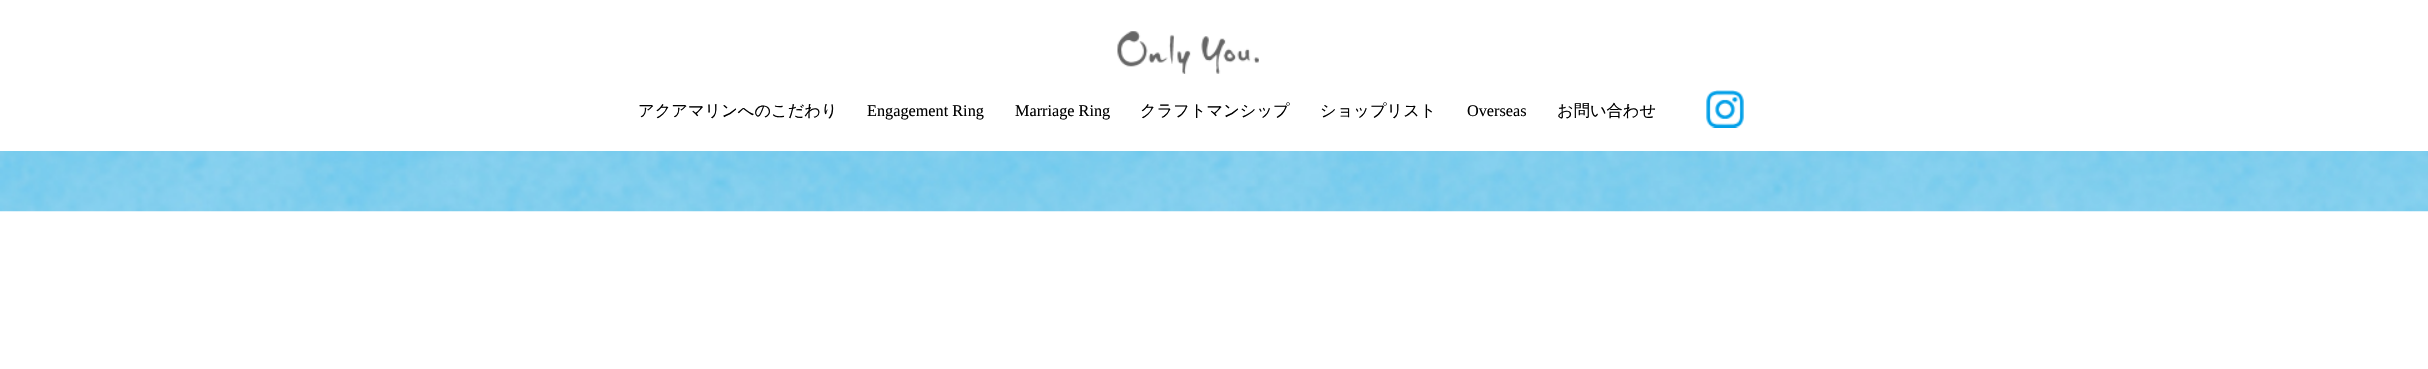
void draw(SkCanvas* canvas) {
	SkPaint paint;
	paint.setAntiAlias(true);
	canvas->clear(0xffffffff);
	canvas->drawImageRect(SkImages::DeferredFromEncodedData(SkData::MakeFromFileName("img1.png")), SkRect::MakeXYWH(1117, 31, 142, 43), SkSamplingOptions());
	SkFont f1(fontMgr->matchFamilyStyle("WenQuanYi Zen Hei", SkFontStyle(500, SkFontStyle::kNormal_Width, SkFontStyle::kUpright_Slant)), 16.25);
	f1.setSubpixel(true);
	paint.setColor(0xff000000);
	canvas->drawString("アクアマリンへのこだわり", 638, 116, f1, paint);
	SkFont f2(fontMgr->matchFamilyStyle("Liberation Serif", SkFontStyle::Normal()), 16.25);
	f2.setSubpixel(true);
	canvas->drawString("Engagement Ring", 867, 116, f2, paint);
	canvas->drawString("Marriage Ring", 1015, 116, f2, paint);
	canvas->drawString("クラフトマンシップ", 1140, 116, f1, paint);
	canvas->drawString("ショップリスト", 1320, 116, f1, paint);
	canvas->drawString("Overseas", 1467, 116, f2, paint);
	canvas->drawString("お問い合わせ", 1557, 116, f1, paint);
	canvas->drawImageRect(SkImages::DeferredFromEncodedData(SkData::MakeFromFileName("img2.png")), SkRect::MakeXYWH(1706, 90, 38, 38), SkSamplingOptions());
	canvas->drawImageRect(SkImages::DeferredFromEncodedData(SkData::MakeFromFileName("img3.png")), SkRect::MakeXYWH(0, 151, 2428, 61), SkSamplingOptions());
}
